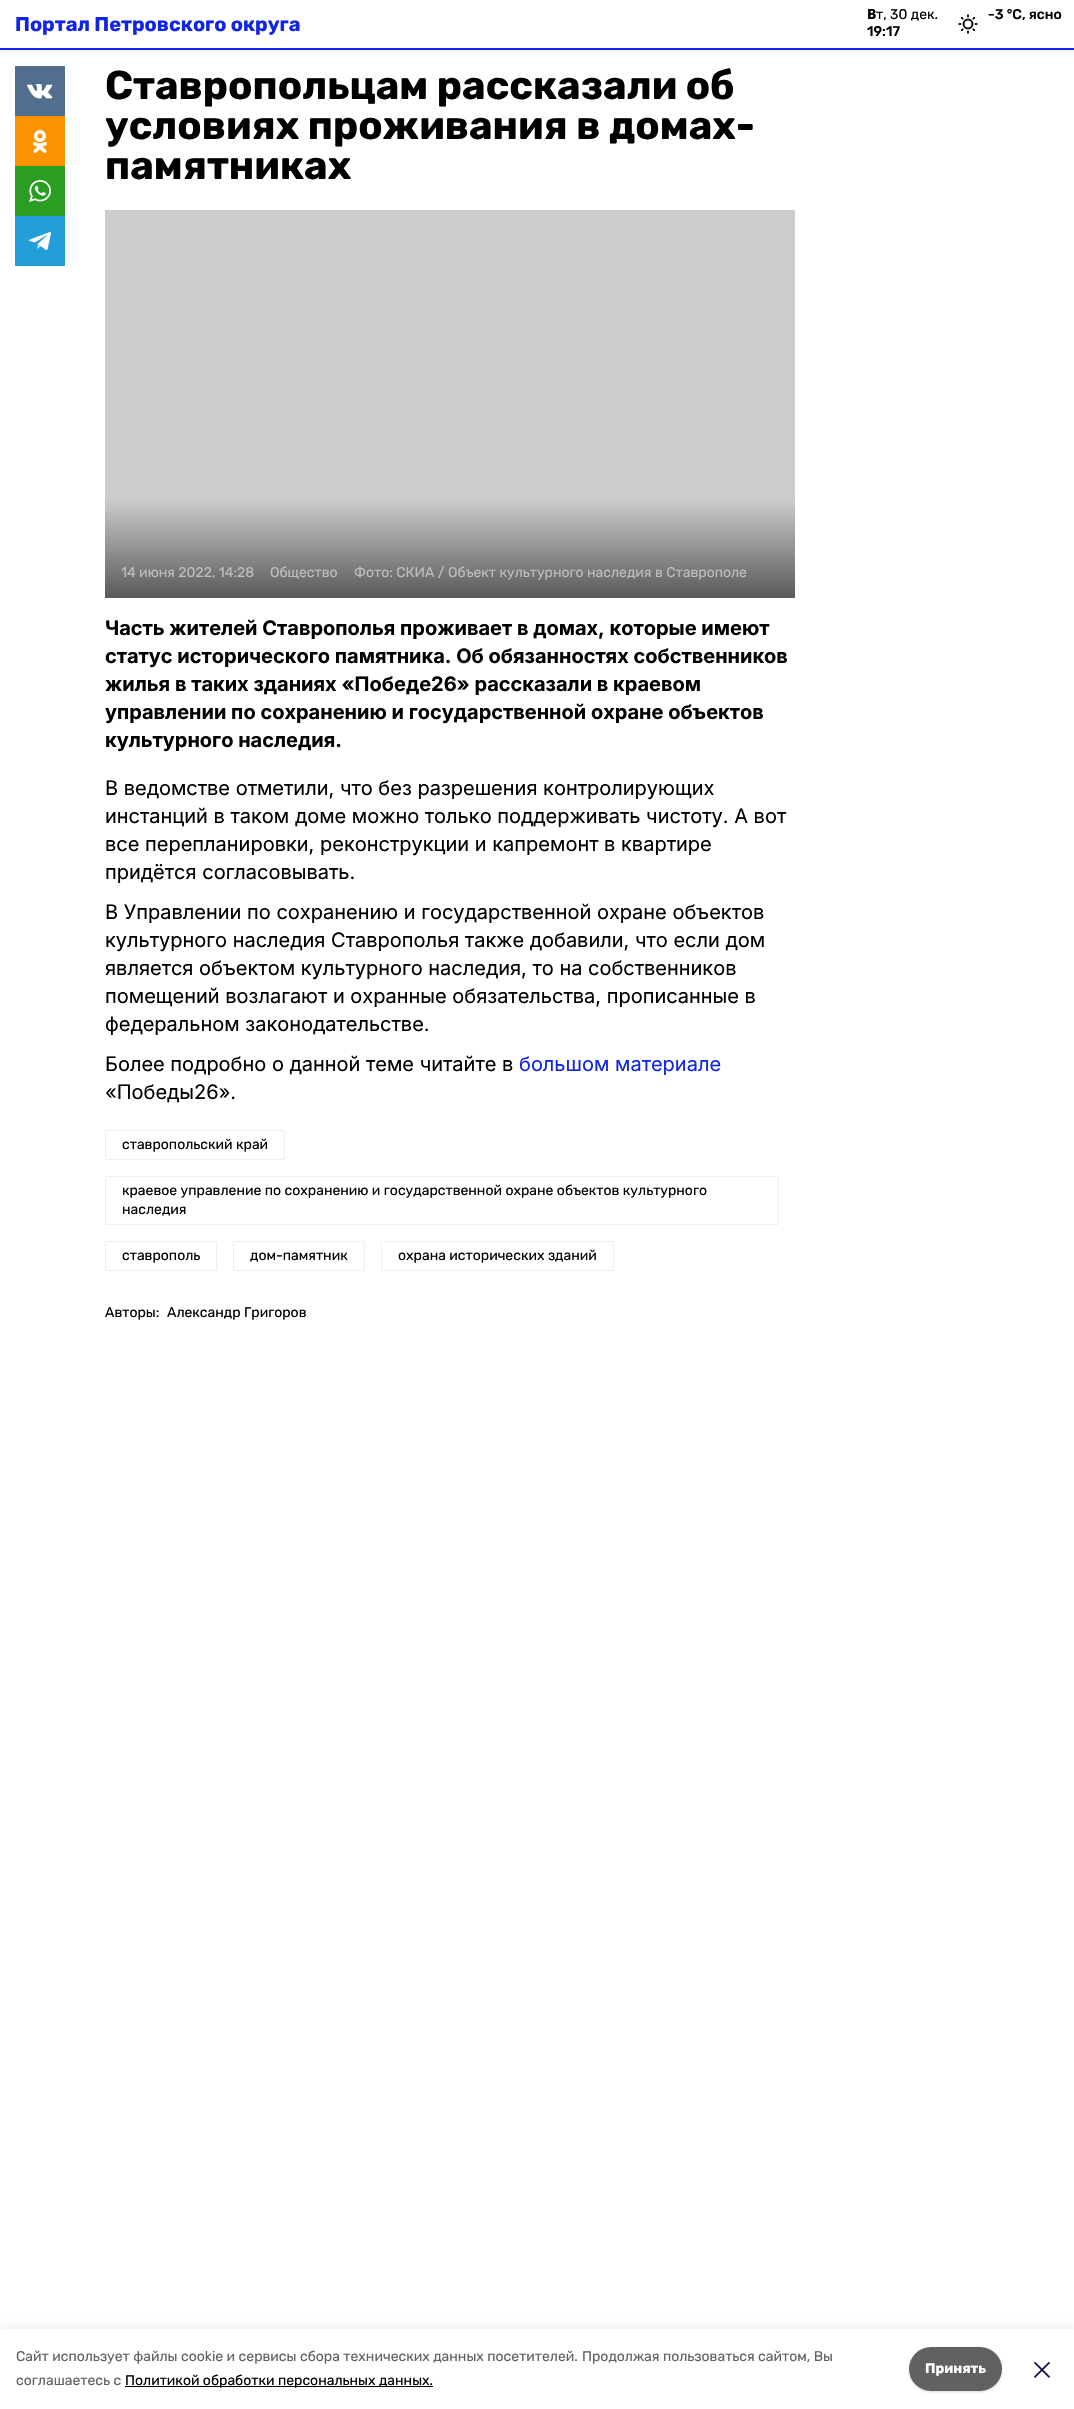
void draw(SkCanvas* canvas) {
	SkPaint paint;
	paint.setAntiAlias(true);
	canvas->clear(0xffffffff);
	canvas->save();
	canvas->clipRect(SkRect::MakeXYWH(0, 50, 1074, 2));
	paint.setColor(0x1a000000);
	paint.setMaskFilter(SkMaskFilter::MakeBlur(kNormal_SkBlurStyle, 1.5));
	canvas->drawRect(SkRect::MakeXYWH(0, 1, 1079, 50), paint);
	paint.setMaskFilter(nullptr);
	canvas->restore();
	paint.setColor(0xff1025e6);
	canvas->drawRect(SkRect::MakeXYWH(0, 48, 1074, 2), paint);
	SkFont f1(fontMgr->matchFamilyStyle("Rubik", SkFontStyle::Bold()), 20);
	f1.setSubpixel(true);
	canvas->drawString("Портал Петровского округа", 15, 31, f1, paint);
	SkFont f2(fontMgr->matchFamilyStyle("Noto Sans", SkFontStyle(800, SkFontStyle::kNormal_Width, SkFontStyle::kUpright_Slant)), 14);
	f2.setSubpixel(true);
	paint.setColor(0xff000000);
	canvas->drawString("В", 867, 19, f2, paint);
	SkFont f3(fontMgr->matchFamilyStyle("Rubik", SkFontStyle::Normal()), 14);
	f3.setSubpixel(true);
	canvas->drawString("т, 30 дек.", 876, 19, f3, paint);
	SkFont f4(fontMgr->matchFamilyStyle("Rubik", SkFontStyle(500, SkFontStyle::kNormal_Width, SkFontStyle::kUpright_Slant)), 14);
	f4.setSubpixel(true);
	canvas->drawString("19:17", 867, 36, f4, paint);
	canvas->drawImageRect(SkImages::DeferredFromEncodedData(SkData::MakeFromFileName("img1.png")), SkRect::MakeXYWH(958, 14, 20, 20), SkSamplingOptions());
	canvas->drawString("-3 °С, ясно", 988, 19, f4, paint);
	paint.setColor(0xff526e8f);
	canvas->drawRect(SkRect::MakeXYWH(15, 66, 50, 50), paint);
	canvas->drawImageRect(SkImages::DeferredFromEncodedData(SkData::MakeFromFileName("img2.png")), SkRect::MakeXYWH(27, 84, 26, 15), SkSamplingOptions());
	paint.setColor(0xfff99400);
	canvas->drawRect(SkRect::MakeXYWH(15, 116, 50, 50), paint);
	canvas->drawImageRect(SkImages::DeferredFromEncodedData(SkData::MakeFromFileName("img3.png")), SkRect::MakeXYWH(33, 130, 14, 23), SkSamplingOptions());
	paint.setColor(0xff2a9e22);
	canvas->drawRect(SkRect::MakeXYWH(15, 166, 50, 50), paint);
	canvas->drawImageRect(SkImages::DeferredFromEncodedData(SkData::MakeFromFileName("img4.png")), SkRect::MakeXYWH(29, 180, 22, 22), SkSamplingOptions());
	paint.setColor(0xff229ed9);
	canvas->drawRect(SkRect::MakeXYWH(15, 216, 50, 50), paint);
	canvas->drawImageRect(SkImages::DeferredFromEncodedData(SkData::MakeFromFileName("img5.png")), SkRect::MakeXYWH(29, 232, 22, 18), SkSamplingOptions());
	SkFont f5(fontMgr->matchFamilyStyle("Rubik", SkFontStyle::Bold()), 40);
	f5.setSubpixel(true);
	paint.setColor(0xff000000);
	canvas->drawString("Ставропольцам рассказали об", 105, 99, f5, paint);
	canvas->drawString("условиях проживания в домах-", 105, 139, f5, paint);
	canvas->drawString("памятниках", 105, 179, f5, paint);
	paint.setColor(0xffcccccc);
	canvas->drawRect(SkRect::MakeXYWH(105, 210, 690, 289), paint);
	{
		const SkColor colors[] = {0xffcccccc, 0xff595959};
		const float stops[] = {0, 1};
		const SkPoint ends[] = {{450, 499}, {450, 598}};
		paint.setShader(SkGradientShader::MakeLinear(ends, colors, stops, 2, SkTileMode::kClamp));
		paint.setAlpha(255);
	}
	canvas->drawRect(SkRect::MakeXYWH(105, 499, 690, 99), paint);
	paint.setShader(nullptr);
	paint.setColor(0xffbdbdbd);
	canvas->drawString("14 июня 2022, 14:28", 121, 577, f3, paint);
	canvas->drawString("Общество", 270, 577, f3, paint);
	canvas->drawString("Фото: СКИА / Объект культурного наследия в Ставрополе", 354, 577, f3, paint);
	SkFont f6(fontMgr->matchFamilyStyle("Inter", SkFontStyle::Bold()), 20);
	f6.setSubpixel(true);
	paint.setColor(0xff000000);
	canvas->drawString("Часть жителей Ставрополья проживает в домах, которые имеют", 105, 635, f6, paint);
	canvas->drawString("статус исторического памятника. Об обязанностях собственников", 105, 663, f6, paint);
	canvas->drawString("жилья в таких зданиях «Победе26» рассказали в краевом", 105, 691, f6, paint);
	canvas->drawString("управлении по сохранению и государственной охране объектов", 105, 719, f6, paint);
	canvas->drawString("культурного наследия.", 105, 747, f6, paint);
	SkFont f7(fontMgr->matchFamilyStyle("Inter", SkFontStyle::Normal()), 20);
	f7.setSubpixel(true);
	canvas->drawString("В ведомстве отметили, что без разрешения контролирующих", 105, 795, f7, paint);
	canvas->drawString("инстанций в таком доме можно только поддерживать чистоту. А вот", 105, 823, f7, paint);
	canvas->drawString("все перепланировки, реконструкции и капремонт в квартире", 105, 851, f7, paint);
	canvas->drawString("придётся согласовывать.", 105, 879, f7, paint);
	canvas->drawString("В Управлении по сохранению и государственной охране объектов", 105, 919, f7, paint);
	canvas->drawString("культурного наследия Ставрополья также добавили, что если дом", 105, 947, f7, paint);
	canvas->drawString("является объектом культурного наследия, то на собственников", 105, 975, f7, paint);
	canvas->drawString("помещений возлагают и охранные обязательства, прописанные в", 105, 1003, f7, paint);
	canvas->drawString("федеральном законодательстве.", 105, 1031, f7, paint);
	canvas->drawString("Более подробно о данной теме читайте в", 105, 1071, f7, paint);
	paint.setColor(0xff1025e6);
	canvas->drawString("большом материале", 519, 1071, f7, paint);
	paint.setColor(0xff000000);
	canvas->drawString("«Победы26».", 105, 1099, f7, paint);
	paint.setStroke(true);
	paint.setStrokeWidth(1);
	paint.setColor(0xffeeeeee);
	canvas->drawRoundRect(SkRect::MakeXYWH(105.5, 1130.5, 179, 29), 1.5, 1.5, paint);
	paint.setStroke(false);
	paint.setColor(0xff000000);
	canvas->drawString("ставропольский край", 122, 1149, f3, paint);
	paint.setStroke(true);
	paint.setColor(0xffeeeeee);
	canvas->drawRoundRect(SkRect::MakeXYWH(105.5, 1176.5, 673, 48), 1.5, 1.5, paint);
	paint.setStroke(false);
	paint.setColor(0xff000000);
	canvas->drawString("краевое управление по сохранению и государственной охране объектов культурного", 122, 1195, f3, paint);
	canvas->drawString("наследия", 122, 1214, f3, paint);
	paint.setStroke(true);
	paint.setColor(0xffeeeeee);
	canvas->drawRoundRect(SkRect::MakeXYWH(105.5, 1241.5, 111, 29), 1.5, 1.5, paint);
	paint.setStroke(false);
	paint.setColor(0xff000000);
	canvas->drawString("ставрополь", 122, 1260, f3, paint);
	paint.setStroke(true);
	paint.setColor(0xffeeeeee);
	canvas->drawRoundRect(SkRect::MakeXYWH(233.5, 1241.5, 131, 29), 1.5, 1.5, paint);
	paint.setStroke(false);
	paint.setColor(0xff000000);
	canvas->drawString("дом-памятник", 250, 1260, f3, paint);
	paint.setStroke(true);
	paint.setColor(0xffeeeeee);
	canvas->drawRoundRect(SkRect::MakeXYWH(381.5, 1241.5, 232, 29), 1.5, 1.5, paint);
	paint.setStroke(false);
	paint.setColor(0xff000000);
	canvas->drawString("охрана исторических зданий", 398, 1260, f3, paint);
	canvas->drawString("Авторы:", 105, 1317, f3, paint);
	canvas->drawString("Александр Григоров", 167, 1317, f3, paint);
	paint.setColor(0x1a000000);
	paint.setMaskFilter(SkMaskFilter::MakeBlur(kNormal_SkBlurStyle, 5));
	canvas->drawRect(SkRect::MakeXYWH(0, 2329, 1074, 80), paint);
	paint.setMaskFilter(nullptr);
	paint.setColor(0xffffffff);
	canvas->drawRect(SkRect::MakeXYWH(0, 2329, 1074, 80), paint);
	paint.setColor(0xff616161);
	canvas->drawString("Cайт использует файлы cookie и сервисы сбора технических данных посетителей.", 16, 2361, f3, paint);
	canvas->drawString("Продолжая пользоваться сайтом, Вы", 582, 2361, f3, paint);
	canvas->drawString("соглашаетесь с", 16, 2385, f3, paint);
	paint.setColor(0xff000000);
	canvas->drawRect(SkRect::MakeXYWH(125, 2386, 308, 1), paint);
	canvas->drawString("Политикой обработки персональных данных.", 125, 2385, f3, paint);
	paint.setColor(0x1a000000);
	paint.setMaskFilter(SkMaskFilter::MakeBlur(kNormal_SkBlurStyle, 1));
	canvas->drawRoundRect(SkRect::MakeXYWH(910, 2349, 91, 42), 21, 21, paint);
	paint.setMaskFilter(nullptr);
	paint.setMaskFilter(SkMaskFilter::MakeBlur(kNormal_SkBlurStyle, 1.5));
	canvas->drawRoundRect(SkRect::MakeXYWH(909, 2348, 93, 44), 22, 22, paint);
	paint.setMaskFilter(nullptr);
	paint.setColor(0xff616161);
	canvas->drawRoundRect(SkRect::MakeXYWH(909, 2347, 93, 44), 22, 22, paint);
	SkFont f8(fontMgr->matchFamilyStyle("Rubik", SkFontStyle::Bold()), 14);
	f8.setSubpixel(true);
	paint.setColor(0xffffffff);
	canvas->drawString("Принять", 925, 2373, f8, paint);
	canvas->drawImageRect(SkImages::DeferredFromEncodedData(SkData::MakeFromFileName("img6.png")), SkRect::MakeXYWH(1034, 2362, 16, 16), SkSamplingOptions());
}
